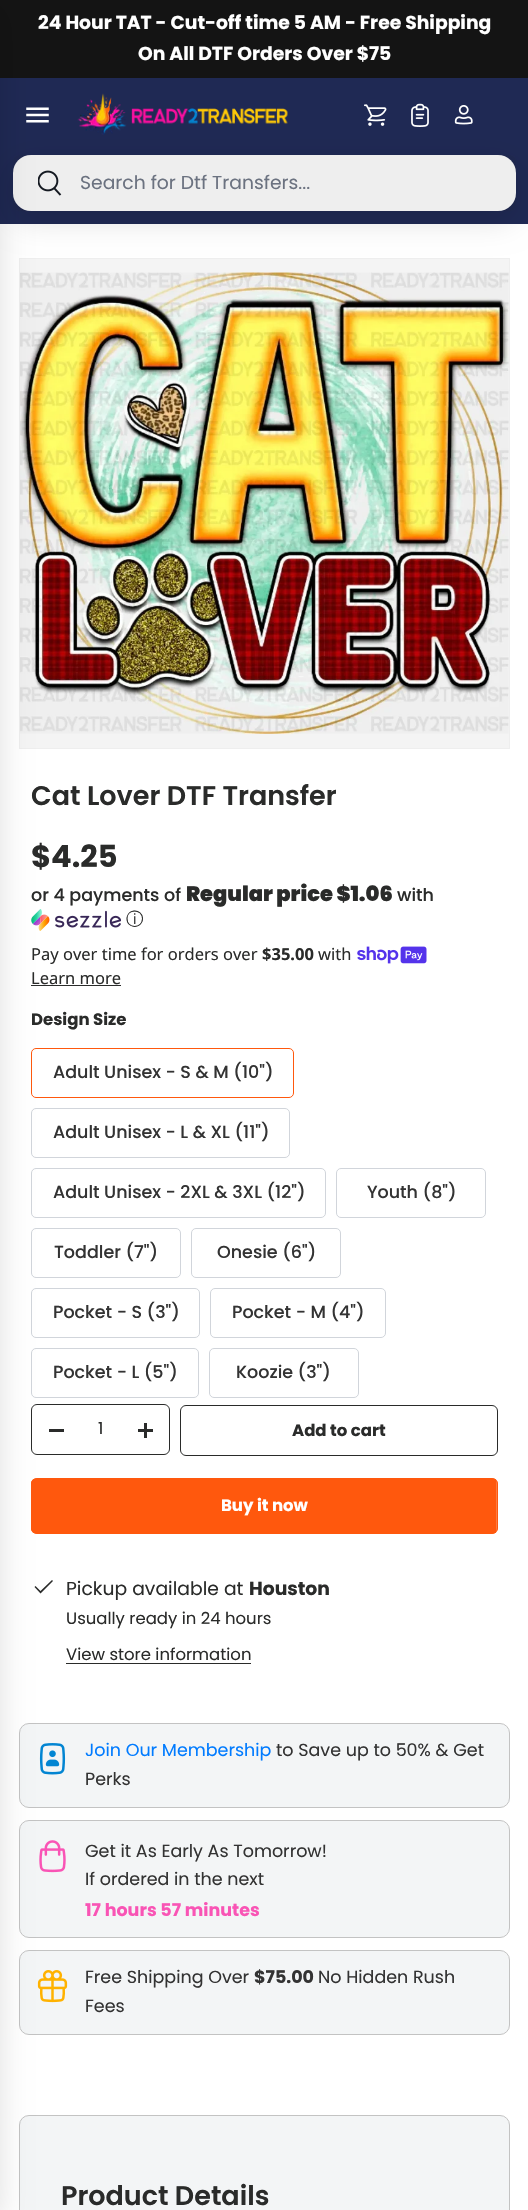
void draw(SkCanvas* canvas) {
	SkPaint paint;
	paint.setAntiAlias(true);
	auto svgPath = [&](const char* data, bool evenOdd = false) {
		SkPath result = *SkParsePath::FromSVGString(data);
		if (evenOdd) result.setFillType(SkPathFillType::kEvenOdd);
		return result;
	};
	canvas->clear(0xffffffff);
	paint.setColor(0xff141414);
	canvas->drawRect(SkRect::MakeXYWH(0, 0, 528, 78), paint);
	SkFont f1(fontMgr->matchFamilyStyle("Poppins", SkFontStyle::Bold()), 18.75);
	f1.setSubpixel(true);
	paint.setColor(0xffffffff);
	canvas->drawString("24 Hour TAT - Cut-off time 5 AM - Free Shipping", 38, 29, f1, paint);
	canvas->drawString("On All DTF Orders Over $75", 138, 60, f1, paint);
	paint.setColor(0xff1f2954);
	canvas->drawRect(SkRect::MakeXYWH(0, 78, 528, 146), paint);
	canvas->drawImageRect(SkImages::DeferredFromEncodedData(SkData::MakeFromFileName("img2.png")), SkRect::MakeXYWH(77, 93, 211, 42), SkSamplingOptions());
	paint.setColor(0x1f000000);
	paint.setMaskFilter(SkMaskFilter::MakeBlur(kNormal_SkBlurStyle, 15));
	canvas->drawRoundRect(SkRect::MakeXYWH(13, 165, 503, 56), 18, 18, paint);
	paint.setMaskFilter(nullptr);
	canvas->drawImageRect(SkImages::DeferredFromEncodedData(SkData::MakeFromFileName("img1.png")), SkRect::MakeXYWH(26, 107, 23, 16), SkSamplingOptions());
	paint.setColor(0xffffffff);
	canvas->drawRoundRect(SkRect::MakeXYWH(13, 155, 503, 56), 18, 18, paint);
	paint.setColor(0x142a2b2a);
	canvas->drawRoundRect(SkRect::MakeXYWH(13, 155, 503, 56), 6, 6, paint);
	canvas->drawImageRect(SkImages::DeferredFromEncodedData(SkData::MakeFromFileName("img6.png")), SkRect::MakeXYWH(38, 170, 24, 26), SkSamplingOptions());
	paint.setColor(0xfff4f4f4);
	canvas->drawRect(SkRect::MakeXYWH(19.5, 258.5, 490, 490), paint);
	paint.setStroke(true);
	paint.setStrokeWidth(1);
	paint.setColor(0xffeeeeee);
	canvas->drawRect(SkRect::MakeXYWH(19.5, 258.5, 490, 490), paint);
	canvas->drawImageRect(SkImages::DeferredFromEncodedData(SkData::MakeFromFileName("img7.png")), SkRect::MakeXYWH(20, 272, 489, 462), SkSamplingOptions());
	canvas->drawImageRect(SkImages::DeferredFromEncodedData(SkData::MakeFromFileName("img8.png")), SkRect::MakeXYWH(31, 909, 90, 22), SkSamplingOptions());
	paint.setStroke(false);
	paint.setColor(0xff2a2b2a);
	canvas->drawRect(SkRect::MakeXYWH(31, 985, 90, 1), paint);
	paint.setStroke(true);
	paint.setColor(0xffff580d);
	canvas->drawRoundRect(SkRect::MakeXYWH(31.5, 1048.5, 262, 49), 4.5, 4.5, paint);
	paint.setColor(0xffd1d5db);
	canvas->drawRoundRect(SkRect::MakeXYWH(31.5, 1108.5, 258, 49), 4.5, 4.5, paint);
	canvas->drawRoundRect(SkRect::MakeXYWH(31.5, 1168.5, 294, 49), 4.5, 4.5, paint);
	canvas->drawRoundRect(SkRect::MakeXYWH(31.5, 1228.5, 149, 49), 4.5, 4.5, paint);
	canvas->drawRoundRect(SkRect::MakeXYWH(31.5, 1288.5, 168, 49), 4.5, 4.5, paint);
	canvas->drawRoundRect(SkRect::MakeXYWH(31.5, 1348.5, 167, 49), 4.5, 4.5, paint);
	paint.setColor(0xff2a2b2a);
	canvas->drawRoundRect(SkRect::MakeXYWH(31.5, 1404.5, 138, 50), 5.5, 5.5, paint);
	paint.setStroke(false);
	paint.setColor(0xffff7c40);
	canvas->drawRoundRect(SkRect::MakeXYWH(31, 1478, 467, 56), 6, 6, paint);
	canvas->save();
	canvas->clipPath(svgPath("M37 1478H492C495.5 1478 498 1480.5 498 1484V1528C498 1531.5 495.5 1534 492 1534H37C33.5 1534 31 1531.5 31 1528V1484C31 1480.5 33.5 1478 37 1478Z"), true);
	{
		const SkColor colors[] = {0xffff7c40, 0xffff580d, 0xffff580d};
		const float stops[] = {0.6, 0.6, 1};
		const SkPoint ends[] = {{-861, 1341}, {462, 1670}};
		paint.setShader(SkGradientShader::MakeLinear(ends, colors, stops, 3, SkTileMode::kClamp));
		paint.setAlpha(255);
	}
	canvas->drawRect(SkRect::MakeXYWH(31, 1479, 465, 54), paint);
	canvas->restore();
	paint.setStroke(true);
	paint.setShader(nullptr);
	paint.setColor(0xffff580d);
	canvas->drawRoundRect(SkRect::MakeXYWH(31.5, 1478.5, 466, 55), 5.5, 5.5, paint);
	paint.setStroke(false);
	paint.setColor(0xff2a2b2a);
	canvas->drawPath(svgPath("M52 1580L53 1581L40.5 1593.5L34.5 1587L35.5 1586L40.5 1591Z"), paint);
	paint.setColor(0xfff3f5f6);
	canvas->drawRoundRect(SkRect::MakeXYWH(19.5, 1723.5, 490, 84), 9.5, 9.5, paint);
	paint.setStroke(true);
	paint.setColor(0xffc3c3c3);
	canvas->drawRoundRect(SkRect::MakeXYWH(19.5, 1723.5, 490, 84), 9.5, 9.5, paint);
	canvas->drawImageRect(SkImages::DeferredFromEncodedData(SkData::MakeFromFileName("img10.png")), SkRect::MakeXYWH(39, 1743, 27, 32), SkSamplingOptions());
	paint.setStroke(false);
	paint.setColor(0xfff3f5f6);
	canvas->drawRoundRect(SkRect::MakeXYWH(19.5, 1820.5, 490, 117), 9.5, 9.5, paint);
	paint.setStroke(true);
	paint.setColor(0xffc3c3c3);
	canvas->drawRoundRect(SkRect::MakeXYWH(19.5, 1820.5, 490, 117), 9.5, 9.5, paint);
	canvas->drawImageRect(SkImages::DeferredFromEncodedData(SkData::MakeFromFileName("img11.png")), SkRect::MakeXYWH(39, 1840, 27, 33), SkSamplingOptions());
	paint.setStroke(false);
	paint.setColor(0xfff3f5f6);
	canvas->drawRoundRect(SkRect::MakeXYWH(19.5, 1950.5, 490, 84), 9.5, 9.5, paint);
	paint.setStroke(true);
	paint.setColor(0xffc3c3c3);
	canvas->drawRoundRect(SkRect::MakeXYWH(19.5, 1950.5, 490, 84), 9.5, 9.5, paint);
	canvas->drawImageRect(SkImages::DeferredFromEncodedData(SkData::MakeFromFileName("img12.png")), SkRect::MakeXYWH(37, 1970, 31, 33), SkSamplingOptions());
	paint.setStroke(false);
	paint.setColor(0xfff3f5f6);
	canvas->drawRoundRect(SkRect::MakeXYWH(19.5, 2115.5, 490, 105), 9.5, 9.5, paint);
	paint.setStroke(true);
	paint.setColor(0xffc3c3c3);
	canvas->drawRoundRect(SkRect::MakeXYWH(19.5, 2115.5, 490, 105), 9.5, 9.5, paint);
	paint.setStroke(false);
	paint.setColor(0x1f000000);
	paint.setMaskFilter(SkMaskFilter::MakeBlur(kNormal_SkBlurStyle, 15));
	canvas->drawRect(SkRect::MakeXYWH(-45, 10, 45, 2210), paint);
	paint.setMaskFilter(nullptr);
	canvas->drawImageRect(SkImages::DeferredFromEncodedData(SkData::MakeFromFileName("img3.png")), SkRect::MakeXYWH(364, 104, 23, 22), SkSamplingOptions());
	canvas->drawImageRect(SkImages::DeferredFromEncodedData(SkData::MakeFromFileName("img4.png")), SkRect::MakeXYWH(411, 103, 18, 24), SkSamplingOptions());
	canvas->drawImageRect(SkImages::DeferredFromEncodedData(SkData::MakeFromFileName("img5.png")), SkRect::MakeXYWH(454, 105, 19, 20), SkSamplingOptions());
	SkFont f2(fontMgr->matchFamilyStyle("Poppins", SkFontStyle::Normal()), 18.75);
	f2.setSubpixel(true);
	paint.setColor(0xff6b7280);
	canvas->drawString("Search for Dtf Transfers...", 80, 189, f2, paint);
	SkFont f3(fontMgr->matchFamilyStyle("Poppins", SkFontStyle(600, SkFontStyle::kNormal_Width, SkFontStyle::kUpright_Slant)), 27);
	f3.setSubpixel(true);
	paint.setColor(0xff2a2b2a);
	canvas->drawString("Cat Lover DTF Transfer", 31, 805, f3, paint);
	SkFont f4(fontMgr->matchFamilyStyle("Poppins", SkFontStyle::Bold()), 30.5);
	f4.setSubpixel(true);
	canvas->drawString("$4.25", 31, 867, f4, paint);
	SkFont f5(fontMgr->matchFamilyStyle("Poppins", SkFontStyle(500, SkFontStyle::kNormal_Width, SkFontStyle::kUpright_Slant)), 17.5);
	f5.setSubpixel(true);
	canvas->drawString("or 4 payments of", 31, 901, f5, paint);
	SkFont f6(fontMgr->matchFamilyStyle("Poppins", SkFontStyle(900, SkFontStyle::kNormal_Width, SkFontStyle::kUpright_Slant)), 21);
	f6.setSubpixel(true);
	canvas->drawString("Regular price $1.06", 186, 901, f6, paint);
	canvas->drawString("with", 397, 901, f5, paint);
	SkFont f7(fontMgr->matchFamilyStyle("WenQuanYi Zen Hei", SkFontStyle(500, SkFontStyle::kNormal_Width, SkFontStyle::kUpright_Slant)), 17.5);
	f7.setSubpixel(true);
	canvas->drawString("ⓘ", 126, 925, f7, paint);
	SkFont f8(fontMgr->matchFamilyStyle("Noto Sans", SkFontStyle::Normal()), 16.5);
	f8.setSubpixel(true);
	canvas->drawString("Pay over time for orders over", 31, 960, f8, paint);
	SkFont f9(fontMgr->matchFamilyStyle("Noto Sans", SkFontStyle::Bold()), 16.5);
	f9.setSubpixel(true);
	canvas->drawString("$35.00", 262, 960, f9, paint);
	canvas->drawString("with", 318, 960, f8, paint);
	canvas->drawImageRect(SkImages::DeferredFromEncodedData(SkData::MakeFromFileName("img9.png")), SkRect::MakeXYWH(357, 946, 70, 18), SkSamplingOptions());
	canvas->drawString("Learn more", 31, 984, f8, paint);
	SkFont f10(fontMgr->matchFamilyStyle("Poppins", SkFontStyle::Bold()), 16.5);
	f10.setSubpixel(true);
	canvas->drawString("Design Size", 31, 1025, f10, paint);
	paint.setColor(0xff333333);
	canvas->drawString("Adult Unisex - S & M (10\")", 53, 1078, f5, paint);
	canvas->drawString("Adult Unisex - L & XL (11\")", 53, 1138, f5, paint);
	canvas->drawString("Adult Unisex - 2XL & 3XL (12\")", 53, 1198, f5, paint);
	paint.setStroke(true);
	paint.setColor(0xffd1d5db);
	canvas->drawRoundRect(SkRect::MakeXYWH(336.5, 1168.5, 149, 49), 4.5, 4.5, paint);
	paint.setStroke(false);
	paint.setColor(0xff333333);
	canvas->drawString("Youth (8\")", 367, 1198, f5, paint);
	canvas->drawString("Toddler (7\")", 54, 1258, f5, paint);
	paint.setStroke(true);
	paint.setColor(0xffd1d5db);
	canvas->drawRoundRect(SkRect::MakeXYWH(191.5, 1228.5, 149, 49), 4.5, 4.5, paint);
	paint.setStroke(false);
	paint.setColor(0xff333333);
	canvas->drawString("Onesie (6\")", 217, 1258, f5, paint);
	canvas->drawString("Pocket - S (3\")", 53, 1318, f5, paint);
	paint.setStroke(true);
	paint.setColor(0xffd1d5db);
	canvas->drawRoundRect(SkRect::MakeXYWH(210.5, 1288.5, 175, 49), 4.5, 4.5, paint);
	paint.setStroke(false);
	paint.setColor(0xff333333);
	canvas->drawString("Pocket - M (4\")", 232, 1318, f5, paint);
	canvas->drawString("Pocket - L (5\")", 53, 1378, f5, paint);
	paint.setStroke(true);
	paint.setColor(0xffd1d5db);
	canvas->drawRoundRect(SkRect::MakeXYWH(209.5, 1348.5, 149, 49), 4.5, 4.5, paint);
	paint.setStroke(false);
	paint.setColor(0xff333333);
	canvas->drawString("Koozie (3\")", 236, 1378, f5, paint);
	paint.setColor(0xff2a2b2a);
	canvas->drawRect(SkRect::MakeXYWH(49, 1429, 15, 3), paint);
	SkFont f11(fontMgr->matchFamilyStyle("Poppins", SkFontStyle::Normal()), 16.5);
	f11.setSubpixel(true);
	canvas->drawString("1", 98, 1434, f11, paint);
	canvas->drawRect(SkRect::MakeXYWH(138, 1429, 15, 3), paint);
	canvas->drawRect(SkRect::MakeXYWH(144, 1423, 3, 15), paint);
	paint.setStroke(true);
	canvas->drawRoundRect(SkRect::MakeXYWH(180.5, 1405.5, 317, 50), 5.5, 5.5, paint);
	paint.setStroke(false);
	canvas->drawString("Add to cart", 292, 1436, f10, paint);
	paint.setColor(0xffffffff);
	canvas->drawString("Buy it now", 221, 1511, f10, paint);
	paint.setColor(0xff2a2b2a);
	canvas->drawString("Pickup available at", 66, 1595, f2, paint);
	canvas->drawString("Houston", 249, 1595, f1, paint);
	canvas->drawString("Usually ready in 24 hours", 66, 1624, f11, paint);
	canvas->drawString("View store information", 66, 1660, f11, paint);
	canvas->drawRect(SkRect::MakeXYWH(66, 1663, 185, 1), paint);
	SkFont f12(fontMgr->matchFamilyStyle("Poppins", SkFontStyle::Normal()), 17.5);
	f12.setSubpixel(true);
	paint.setColor(0xff007bff);
	canvas->drawString("Join Our Membership", 85, 1756, f12, paint);
	paint.setColor(0xff333333);
	canvas->drawString("to Save up to 50% & Get", 276, 1756, f12, paint);
	canvas->drawString("Perks", 85, 1785, f12, paint);
	canvas->drawString("Get it As Early As Tomorrow!", 85, 1857, f12, paint);
	canvas->drawString("If ordered in the next", 85, 1885, f12, paint);
	SkFont f13(fontMgr->matchFamilyStyle("Poppins", SkFontStyle::Bold()), 17.5);
	f13.setSubpixel(true);
	paint.setColor(0xfff954b5);
	canvas->drawString("17 hours 57 minutes", 85, 1916, f13, paint);
	paint.setColor(0xff333333);
	canvas->drawString("Free Shipping Over", 85, 1983, f12, paint);
	canvas->drawString("$75.00", 254, 1983, f13, paint);
	canvas->drawString("No Hidden Rush", 318, 1983, f12, paint);
	canvas->drawString("Fees", 85, 2012, f12, paint);
	paint.setColor(0xff2a2b2a);
	canvas->drawString("Product Details", 61, 2205, f3, paint);
}
